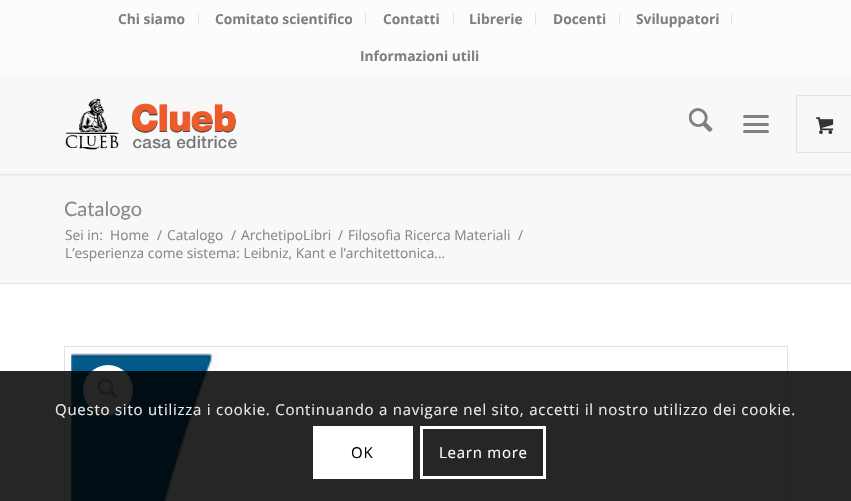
void draw(SkCanvas* canvas) {
	SkPaint paint;
	paint.setAntiAlias(true);
	auto spacedText = [&](const char* s, float x, float y, const SkFont& font, const SkPaint& ink, float letter, float word) {
		std::vector<SkGlyphID> glyphs(font.countText(s, strlen(s), SkTextEncoding::kUTF8));
		std::vector<float> xs(glyphs.size());
		font.textToGlyphs(s, strlen(s), SkTextEncoding::kUTF8, glyphs);
		font.getXPos(glyphs, xs, x);
		float extra = 0;
		for (size_t i = 0; i < glyphs.size(); i++) {
			xs[i] += extra;
			extra += letter + word * (glyphs[i] == font.unicharToGlyph(' '));
		}
		canvas->drawTextBlob(SkTextBlob::MakeFromPosHGlyphs(glyphs, xs, y, font), 0, 0, ink);
	};
	canvas->clear(0xfff8f8f8);
	paint.setColor(0x1a000000);
	paint.setMaskFilter(SkMaskFilter::MakeBlur(kNormal_SkBlurStyle, 1));
	canvas->drawRect(SkRect::MakeXYWH(-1, -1, 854, 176), paint);
	paint.setMaskFilter(nullptr);
	paint.setColor(0xfffcfcfc);
	canvas->drawRect(SkRect::MakeXYWH(0, 0, 851, 75), paint);
	paint.setColor(0xffe1e1e1);
	canvas->drawRect(SkRect::MakeXYWH(198, 13, 1, 12), paint);
	SkFont f1(fontMgr->matchFamilyStyle("Open Sans", SkFontStyle::Bold()), 13.75);
	f1.setSubpixel(true);
	paint.setColor(0xff808080);
	canvas->drawString("Chi siamo", 118, 24, f1, paint);
	paint.setColor(0xffe1e1e1);
	canvas->drawRect(SkRect::MakeXYWH(365, 13, 1, 12), paint);
	paint.setColor(0xff808080);
	canvas->drawString("Comitato scientifico", 215, 24, f1, paint);
	paint.setColor(0xffe1e1e1);
	canvas->drawRect(SkRect::MakeXYWH(453, 13, 1, 12), paint);
	paint.setColor(0xff808080);
	canvas->drawString("Contatti", 383, 24, f1, paint);
	paint.setColor(0xffe1e1e1);
	canvas->drawRect(SkRect::MakeXYWH(535, 13, 1, 12), paint);
	paint.setColor(0xff808080);
	canvas->drawString("Librerie", 469, 24, f1, paint);
	paint.setColor(0xffe1e1e1);
	canvas->drawRect(SkRect::MakeXYWH(619, 13, 1, 12), paint);
	paint.setColor(0xff808080);
	canvas->drawString("Docenti", 553, 24, f1, paint);
	paint.setColor(0xffe1e1e1);
	canvas->drawRect(SkRect::MakeXYWH(731, 13, 1, 12), paint);
	paint.setColor(0xff808080);
	canvas->drawString("Sviluppatori", 636, 24, f1, paint);
	canvas->drawString("Informazioni utili", 360, 61, f1, paint);
	paint.setColor(0xfff8f8f8);
	canvas->drawRect(SkRect::MakeXYWH(0, 75, 851, 99), paint);
	canvas->drawImageRect(SkImages::DeferredFromEncodedData(SkData::MakeFromFileName("img1.png")), SkRect::MakeXYWH(65, 98, 172, 52), SkSamplingOptions());
	canvas->drawImageRect(SkImages::DeferredFromEncodedData(SkData::MakeFromFileName("img2.png")), SkRect::MakeXYWH(689, 108, 24, 24), SkSamplingOptions());
	paint.setColor(0xff808080);
	canvas->drawRoundRect(SkRect::MakeXYWH(743, 123, 26, 3), 1.5, 1.5, paint);
	canvas->drawRoundRect(SkRect::MakeXYWH(743, 115, 26, 3), 1.5, 1.5, paint);
	canvas->drawRoundRect(SkRect::MakeXYWH(743, 130, 26, 3), 1.5, 1.5, paint);
	paint.setStroke(true);
	paint.setStrokeWidth(1);
	paint.setColor(0xffe1e1e1);
	canvas->drawRoundRect(SkRect::MakeXYWH(796.5, 95.5, 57, 57), 2, 2, paint);
	canvas->drawImageRect(SkImages::DeferredFromEncodedData(SkData::MakeFromFileName("img3.png")), SkRect::MakeXYWH(816, 117, 18, 17), SkSamplingOptions());
	SkFont f2(fontMgr->matchFamilyStyle("Lato", SkFontStyle::Normal()), 20);
	f2.setSubpixel(true);
	paint.setStroke(false);
	paint.setColor(0xff888888);
	canvas->drawString("Catalogo", 64, 216, f2, paint);
	SkFont f3(fontMgr->matchFamilyStyle("Open Sans", SkFontStyle::Normal()), 13.75);
	f3.setSubpixel(true);
	canvas->drawString("Sei in:", 65, 240, f3, paint);
	canvas->drawString("Home", 110, 240, f3, paint);
	canvas->drawString("/", 157, 240, f3, paint);
	canvas->drawString("Catalogo", 167, 240, f3, paint);
	canvas->drawString("/", 231, 240, f3, paint);
	canvas->drawString("ArchetipoLibri", 241, 240, f3, paint);
	canvas->drawString("/", 338, 240, f3, paint);
	canvas->drawString("Filosofia Ricerca Materiali", 348, 240, f3, paint);
	canvas->drawString("/", 518, 240, f3, paint);
	canvas->drawString("L’esperienza come sistema: Leibniz, Kant e l’architettonica...", 65, 258, f3, paint);
	paint.setColor(0xffffffff);
	canvas->drawRect(SkRect::MakeXYWH(0, 284, 851, 217), paint);
	paint.setColor(0xffe1e1e1);
	canvas->drawRect(SkRect::MakeXYWH(0, 283, 851, 1), paint);
	paint.setStroke(true);
	canvas->drawRect(SkRect::MakeXYWH(64.5, 346.5, 723, 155), paint);
	canvas->drawImageRect(SkImages::DeferredFromEncodedData(SkData::MakeFromFileName("img4.png")), SkRect::MakeXYWH(71, 353, 149, 148), SkSamplingOptions());
	paint.setStroke(false);
	paint.setColor(0xffffffff);
	canvas->drawCircle(108, 390, 25, paint);
	canvas->drawImageRect(SkImages::DeferredFromEncodedData(SkData::MakeFromFileName("img5.png")), SkRect::MakeXYWH(97, 378, 21, 21), SkSamplingOptions());
	paint.setColor(0xd9000000);
	canvas->drawRect(SkRect::MakeXYWH(0, 371, 851, 130), paint);
	SkFont f4(fontMgr->matchFamilyStyle("Open Sans", SkFontStyle::Normal()), 15);
	f4.setSubpixel(true);
	paint.setColor(0xffe9e9e9);
	spacedText("Questo sito utilizza i cookie. Continuando a navigare nel sito, accetti il nostro utilizzo dei cookie.", 55, 415, f4, paint, 0.75, 0);
	paint.setColor(0xffffffff);
	canvas->drawRect(SkRect::MakeXYWH(313, 426, 100, 53), paint);
	paint.setColor(0xff000000);
	spacedText("OK", 351, 458, f4, paint, 0.75, 0);
	paint.setStroke(true);
	paint.setStrokeWidth(3);
	paint.setColor(0xffffffff);
	canvas->drawRect(SkRect::MakeXYWH(421.5, 427.5, 123, 50), paint);
	paint.setStroke(false);
	spacedText("Learn more", 439, 458, f4, paint, 0.75, 0);
}
